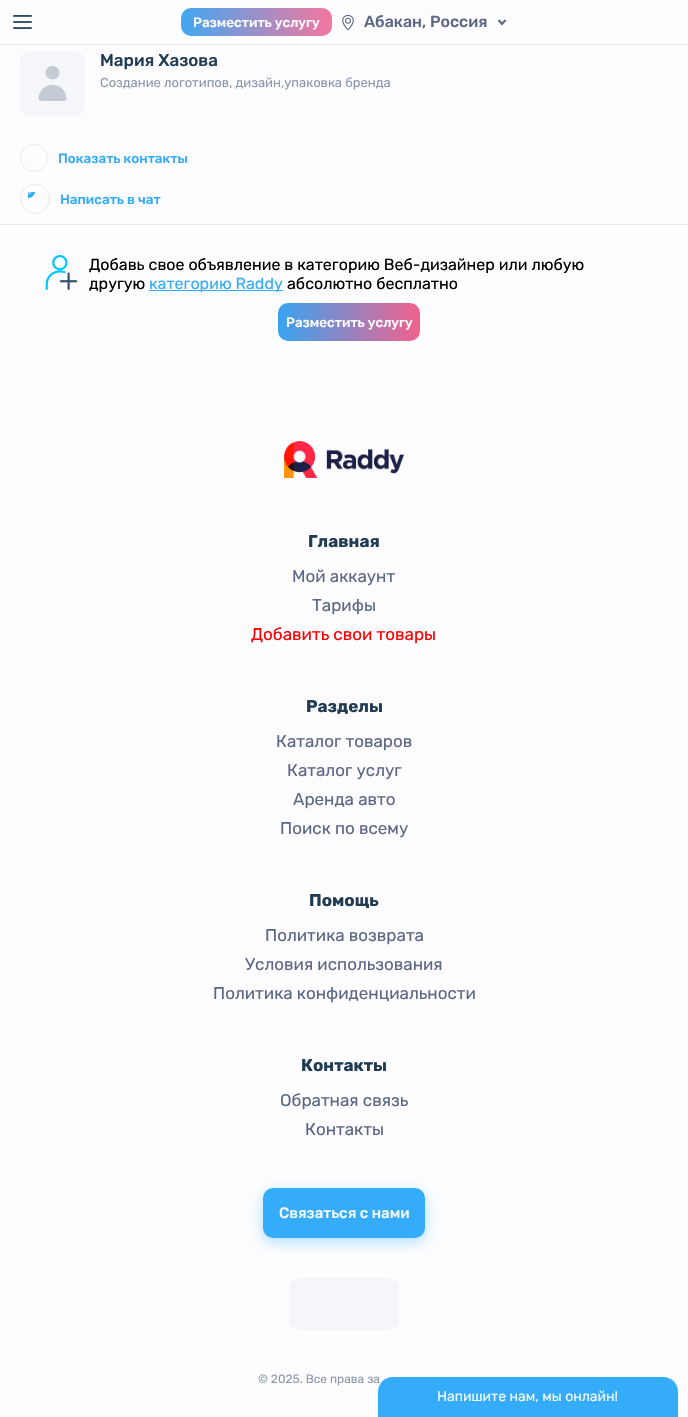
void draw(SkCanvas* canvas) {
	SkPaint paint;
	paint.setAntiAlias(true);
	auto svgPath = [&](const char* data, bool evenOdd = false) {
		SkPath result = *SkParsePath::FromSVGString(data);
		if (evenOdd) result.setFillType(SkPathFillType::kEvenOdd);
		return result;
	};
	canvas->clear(0xfffdfdff);
	paint.setColor(0xffe5e8ed);
	canvas->drawRect(SkRect::MakeXYWH(0, 44, 688, 1), paint);
	canvas->drawImageRect(SkImages::DeferredFromEncodedData(SkData::MakeFromFileName("img1.png")), SkRect::MakeXYWH(13, 15, 19, 14), SkSamplingOptions());
	{
		const SkColor colors[] = {0xff42a8f3, 0xfff4779d};
		const float stops[] = {0, 1};
		const SkPoint ends[] = {{181, 22}, {332, 22}};
		paint.setShader(SkGradientShader::MakeLinear(ends, colors, stops, 2, SkTileMode::kClamp));
		paint.setAlpha(255);
	}
	canvas->drawRoundRect(SkRect::MakeXYWH(181, 8, 151, 28), 10, 10, paint);
	SkFont f1(fontMgr->matchFamilyStyle("Rubik", SkFontStyle(500, SkFontStyle::kNormal_Width, SkFontStyle::kUpright_Slant)), 13.5);
	f1.setSubpixel(true);
	paint.setShader(nullptr);
	paint.setColor(0xfffdfdff);
	canvas->drawString("Разместить услугу", 193, 27, f1, paint);
	canvas->drawImageRect(SkImages::DeferredFromEncodedData(SkData::MakeFromFileName("img2.png")), SkRect::MakeXYWH(342, 14, 12, 16), SkSamplingOptions());
	SkFont f2(fontMgr->matchFamilyStyle("Rubik", SkFontStyle(500, SkFontStyle::kNormal_Width, SkFontStyle::kUpright_Slant)), 16);
	f2.setSubpixel(true);
	paint.setColor(0xff5c6785);
	canvas->drawString("Абакан, Россия", 364, 27, f2, paint);
	paint.setStroke(true);
	paint.setStrokeWidth(2.1);
	canvas->drawPath(svgPath("M498.5 20L502 24L505.5 20"), paint);
	paint.setStroke(false);
	paint.setColor(0xffe5e8ed);
	canvas->drawRect(SkRect::MakeXYWH(0, 224, 688, 1), paint);
	paint.setColor(0xfff5f6fa);
	canvas->drawRoundRect(SkRect::MakeXYWH(20, 51, 65, 65), 10, 10, paint);
	canvas->drawImageRect(SkImages::DeferredFromEncodedData(SkData::MakeFromFileName("img3.png")), SkRect::MakeXYWH(38, 66, 29, 35), SkSamplingOptions());
	SkFont f3(fontMgr->matchFamilyStyle("Rubik", SkFontStyle(500, SkFontStyle::kNormal_Width, SkFontStyle::kUpright_Slant)), 17);
	f3.setSubpixel(true);
	paint.setColor(0xff223c54);
	canvas->drawString("Мария Хазова", 100, 66, f3, paint);
	SkFont f4(fontMgr->matchFamilyStyle("Rubik", SkFontStyle::Normal()), 13);
	f4.setSubpixel(true);
	paint.setColor(0xff8d98ab);
	canvas->drawString("Создание логотипов, дизайн,упаковка бренда", 100, 87, f4, paint);
	paint.setStroke(true);
	paint.setStrokeWidth(1);
	paint.setColor(0xffe5e8ed);
	canvas->drawCircle(34, 158, 13.5, paint);
	paint.setStroke(false);
	paint.setColor(0xff34acfa);
	canvas->drawString("Показать контакты", 58, 163, f1, paint);
	paint.setStroke(true);
	paint.setColor(0xffe5e8ed);
	canvas->drawCircle(35, 199, 14.5, paint);
	canvas->drawImageRect(SkImages::DeferredFromEncodedData(SkData::MakeFromFileName("img4.png")), SkRect::MakeXYWH(28, 192, 7, 6), SkSamplingOptions());
	paint.setStroke(false);
	paint.setColor(0xff34acfa);
	canvas->drawString("Написать в чат", 60, 204, f1, paint);
	canvas->drawImageRect(SkImages::DeferredFromEncodedData(SkData::MakeFromFileName("img5.png")), SkRect::MakeXYWH(45, 255, 33, 35), SkSamplingOptions());
	SkFont f5(fontMgr->matchFamilyStyle("Rubik", SkFontStyle::Normal()), 16);
	f5.setSubpixel(true);
	paint.setColor(0xff000000);
	canvas->drawString("Добавь свое объявление в категорию Веб-дизайнер или любую", 89, 270, f5, paint);
	canvas->drawString("другую", 89, 289, f5, paint);
	paint.setColor(0xff34acfa);
	canvas->drawRect(SkRect::MakeXYWH(149, 290, 134, 1), paint);
	canvas->drawString("категорию Raddy", 149, 289, f5, paint);
	paint.setColor(0xff000000);
	canvas->drawString("абсолютно бесплатно", 287, 289, f5, paint);
	{
		const SkColor colors[] = {0xff38a3f1, 0xfff2628d};
		const float stops[] = {0, 1};
		const SkPoint ends[] = {{278, 322}, {420, 322}};
		paint.setShader(SkGradientShader::MakeLinear(ends, colors, stops, 2, SkTileMode::kClamp));
		paint.setAlpha(255);
	}
	canvas->drawRoundRect(SkRect::MakeXYWH(278, 303, 142, 38), 10, 10, paint);
	paint.setShader(nullptr);
	paint.setColor(0xfffdfdff);
	canvas->drawString("Разместить услугу", 286, 327, f1, paint);
	canvas->drawImageRect(SkImages::DeferredFromEncodedData(SkData::MakeFromFileName("img6.png")), SkRect::MakeXYWH(284, 441, 120, 37), SkSamplingOptions());
	SkFont f6(fontMgr->matchFamilyStyle("Rubik", SkFontStyle::Bold()), 17);
	f6.setSubpixel(true);
	paint.setColor(0xff223c54);
	canvas->drawString("Главная", 308, 547, f6, paint);
	SkFont f7(fontMgr->matchFamilyStyle("Rubik", SkFontStyle::Normal()), 17);
	f7.setSubpixel(true);
	paint.setColor(0xff5c6785);
	canvas->drawString("Мой аккаунт", 292, 582, f7, paint);
	canvas->drawString("Тарифы", 312, 611, f7, paint);
	paint.setColor(0xffff0000);
	canvas->drawString("Добавить свои товары", 251, 640, f7, paint);
	paint.setColor(0xff223c54);
	canvas->drawString("Разделы", 306, 712, f6, paint);
	paint.setColor(0xff5c6785);
	canvas->drawString("Каталог товаров", 276, 747, f7, paint);
	canvas->drawString("Каталог услуг", 287, 776, f7, paint);
	canvas->drawString("Аренда авто", 293, 805, f7, paint);
	canvas->drawString("Поиск по всему", 280, 834, f7, paint);
	paint.setColor(0xff223c54);
	canvas->drawString("Помощь", 309, 906, f6, paint);
	paint.setColor(0xff5c6785);
	canvas->drawString("Политика возврата", 265, 941, f7, paint);
	canvas->drawString("Условия использования", 245, 970, f7, paint);
	canvas->drawString("Политика конфиденциальности", 213, 999, f7, paint);
	paint.setColor(0xff223c54);
	canvas->drawString("Контакты", 301, 1071, f6, paint);
	paint.setColor(0xff5c6785);
	canvas->drawString("Обратная связь", 280, 1106, f7, paint);
	canvas->drawString("Контакты", 305, 1135, f7, paint);
	paint.setColor(0x6634acfa);
	paint.setMaskFilter(SkMaskFilter::MakeBlur(kNormal_SkBlurStyle, 7));
	canvas->drawRoundRect(SkRect::MakeXYWH(263, 1192, 162, 50), 10, 10, paint);
	paint.setMaskFilter(nullptr);
	paint.setColor(0xff34acfa);
	canvas->drawRoundRect(SkRect::MakeXYWH(263, 1188, 162, 50), 10, 10, paint);
	SkFont f8(fontMgr->matchFamilyStyle("Rubik", SkFontStyle(500, SkFontStyle::kNormal_Width, SkFontStyle::kUpright_Slant)), 15);
	f8.setSubpixel(true);
	paint.setColor(0xfff3f9ff);
	canvas->drawString("Связаться с нами", 279, 1218, f8, paint);
	paint.setColor(0xfff5f6fa);
	canvas->drawRoundRect(SkRect::MakeXYWH(289, 1278, 110, 52), 10, 10, paint);
	SkFont f9(fontMgr->matchFamilyStyle("Rubik", SkFontStyle::Normal()), 12);
	f9.setSubpixel(true);
	paint.setColor(0xff8d98ab);
	canvas->drawString("© 2025. Все права за", 258, 1383, f9, paint);
	paint.setColor(0xff34acfa);
	canvas->drawPath(svgPath("M393 1377H663C671.5 1377 678 1383.5 678 1392V1417H378V1392C378 1383.5 384.5 1377 393 1377Z"), paint);
	SkFont f10(fontMgr->matchFamilyStyle("Rubik", SkFontStyle::Normal()), 14);
	f10.setSubpixel(true);
	paint.setColor(0xfff3f9ff);
	canvas->drawString("Напишите нам, мы онлайн!", 437, 1401, f10, paint);
}
